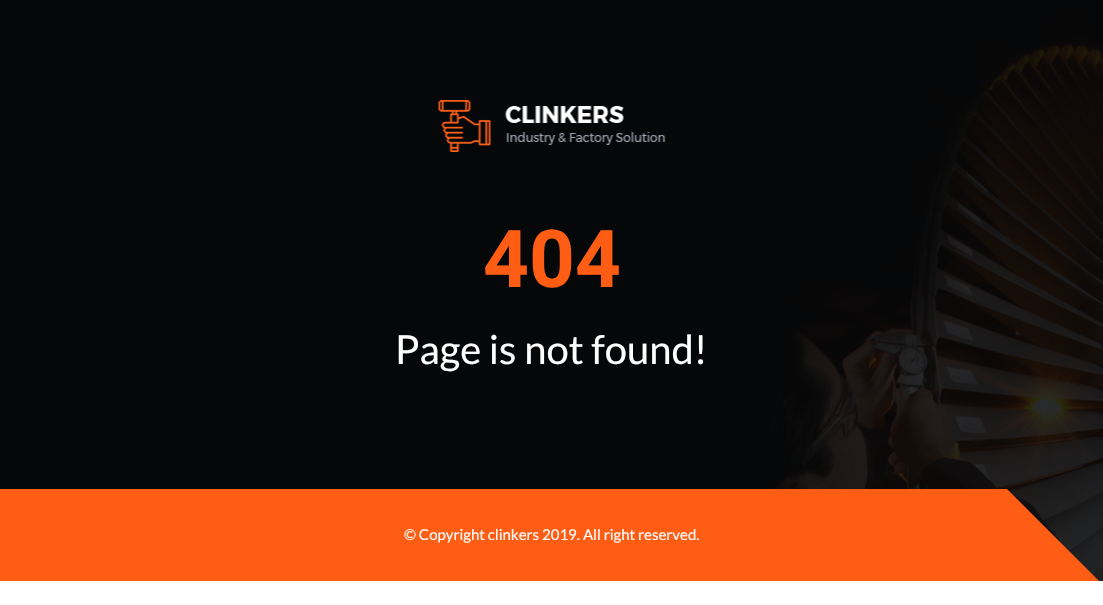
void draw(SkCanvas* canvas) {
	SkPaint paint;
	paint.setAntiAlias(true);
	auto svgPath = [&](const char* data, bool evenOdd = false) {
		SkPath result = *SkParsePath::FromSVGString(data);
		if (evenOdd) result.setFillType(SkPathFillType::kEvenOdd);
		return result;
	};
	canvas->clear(0xffffffff);
	canvas->drawImageRect(SkImages::DeferredFromEncodedData(SkData::MakeFromFileName("img1.png")), SkRect::MakeXYWH(0, 0, 1103, 581), SkSamplingOptions());
	canvas->drawImageRect(SkImages::DeferredFromEncodedData(SkData::MakeFromFileName("img2.png")), SkRect::MakeXYWH(438, 100, 228, 52), SkSamplingOptions());
	SkFont f1(fontMgr->matchFamilyStyle("Heebo", SkFontStyle::Bold()), 80);
	f1.setSubpixel(true);
	paint.setColor(0xfffe5d13);
	canvas->drawString("404", 483, 287, f1, paint);
	SkFont f2(fontMgr->matchFamilyStyle("Lato", SkFontStyle::Normal()), 40);
	f2.setSubpixel(true);
	paint.setColor(0xffffffff);
	canvas->drawString("Page is not found!", 395, 364, f2, paint);
	paint.setColor(0xfffe5d13);
	canvas->drawPath(svgPath("M-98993 489H1007L1099 581H-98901Z"), paint);
	SkFont f3(fontMgr->matchFamilyStyle("Lato", SkFontStyle::Normal()), 15);
	f3.setSubpixel(true);
	paint.setColor(0xffffffff);
	canvas->drawString("© Copyright clinkers 2019. All right reserved.", 404, 540, f3, paint);
}
